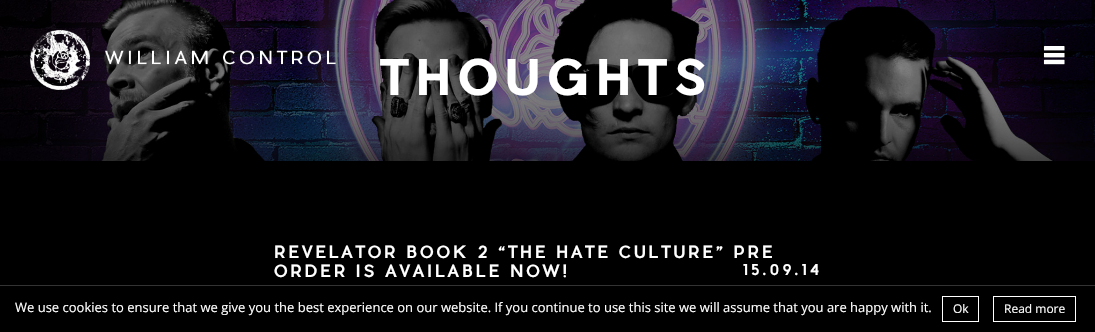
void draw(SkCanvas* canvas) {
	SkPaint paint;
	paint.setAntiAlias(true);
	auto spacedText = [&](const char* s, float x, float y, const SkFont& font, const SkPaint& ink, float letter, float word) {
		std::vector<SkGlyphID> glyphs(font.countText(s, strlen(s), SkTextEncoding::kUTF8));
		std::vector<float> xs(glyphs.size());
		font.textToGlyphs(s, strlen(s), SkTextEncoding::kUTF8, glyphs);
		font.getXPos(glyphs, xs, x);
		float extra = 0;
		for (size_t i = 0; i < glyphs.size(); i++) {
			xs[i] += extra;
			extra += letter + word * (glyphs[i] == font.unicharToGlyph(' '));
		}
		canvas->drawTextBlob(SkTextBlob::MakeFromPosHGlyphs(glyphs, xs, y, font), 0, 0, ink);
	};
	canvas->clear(0xff000000);
	canvas->drawImageRect(SkImages::DeferredFromEncodedData(SkData::MakeFromFileName("img1.png")), SkRect::MakeXYWH(0, 0, 1095, 161), SkSamplingOptions());
	canvas->drawImageRect(SkImages::DeferredFromEncodedData(SkData::MakeFromFileName("img2.png")), SkRect::MakeXYWH(30, 30, 306, 60), SkSamplingOptions());
	canvas->drawImageRect(SkImages::DeferredFromEncodedData(SkData::MakeFromFileName("img3.png")), SkRect::MakeXYWH(1043, 46, 22, 19), SkSamplingOptions());
	SkFont f1(fontMgr->matchFamilyStyle("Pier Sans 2", SkFontStyle::Bold()), 48);
	f1.setSubpixel(true);
	paint.setColor(0xffffffff);
	spacedText("THOUGHTS", 381, 95, f1, paint, 7, 0);
	SkFont f2(fontMgr->matchFamilyStyle("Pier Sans", SkFontStyle::Bold()), 16);
	f2.setSubpixel(true);
	spacedText("REVELATOR BOOK 2 “THE HATE CULTURE” PRE", 274, 258, f2, paint, 3, 0);
	spacedText("ORDER IS AVAILABLE NOW!", 274, 277, f2, paint, 3, 0);
	SkFont f3(fontMgr->matchFamilyStyle("Pier Sans", SkFontStyle::Bold()), 14);
	f3.setSubpixel(true);
	spacedText("15.09.14", 742, 275, f3, paint, 3, 0);
	paint.setColor(0xff333333);
	canvas->drawRect(SkRect::MakeXYWH(0, 285, 1095, 1), paint);
	SkFont f4(fontMgr->matchFamilyStyle("Open Sans", SkFontStyle::Normal()), 13);
	f4.setSubpixel(true);
	paint.setColor(0xffffffff);
	canvas->drawString("We use cookies to ensure that we give you the best experience on our website. If you continue to use this site we will assume that you are happy with it.", 15, 312, f4, paint);
	paint.setStroke(true);
	paint.setStrokeWidth(1);
	canvas->drawRect(SkRect::MakeXYWH(942.5, 296.5, 36, 25), paint);
	SkFont f5(fontMgr->matchFamilyStyle("Open Sans", SkFontStyle::Normal()), 12);
	f5.setSubpixel(true);
	paint.setStroke(false);
	canvas->drawString("Ok", 953, 313, f5, paint);
	paint.setStroke(true);
	canvas->drawRect(SkRect::MakeXYWH(993.5, 296.5, 82, 25), paint);
	paint.setStroke(false);
	canvas->drawString("Read more", 1004, 313, f5, paint);
}
